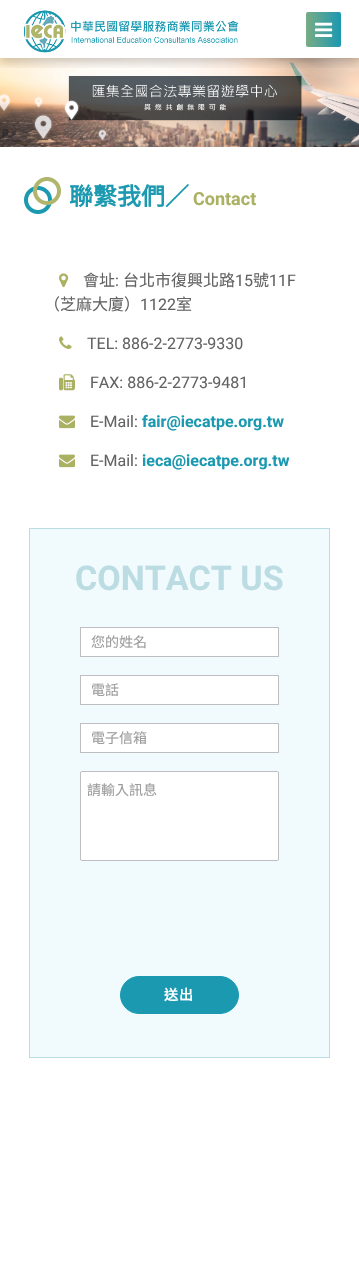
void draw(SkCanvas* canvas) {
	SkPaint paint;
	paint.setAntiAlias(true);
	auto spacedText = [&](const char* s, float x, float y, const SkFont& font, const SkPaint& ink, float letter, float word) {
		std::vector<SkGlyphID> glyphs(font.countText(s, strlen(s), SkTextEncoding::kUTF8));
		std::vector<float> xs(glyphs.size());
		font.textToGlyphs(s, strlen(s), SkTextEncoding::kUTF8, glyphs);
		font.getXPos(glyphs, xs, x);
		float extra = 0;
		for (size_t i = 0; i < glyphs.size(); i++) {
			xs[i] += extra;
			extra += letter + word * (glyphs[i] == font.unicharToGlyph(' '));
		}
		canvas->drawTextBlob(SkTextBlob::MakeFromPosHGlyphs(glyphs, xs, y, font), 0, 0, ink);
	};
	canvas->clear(0xffffffff);
	canvas->drawImageRect(SkImages::DeferredFromEncodedData(SkData::MakeFromFileName("img3.png")), SkRect::MakeXYWH(0, 58, 359, 89), SkSamplingOptions());
	canvas->save();
	canvas->clipRect(SkRect::MakeXYWH(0, 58, 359, 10));
	paint.setColor(0x33000000);
	paint.setMaskFilter(SkMaskFilter::MakeBlur(kNormal_SkBlurStyle, 5));
	canvas->drawRect(SkRect::MakeXYWH(0, 4, 359, 58), paint);
	paint.setMaskFilter(nullptr);
	canvas->restore();
	canvas->drawImageRect(SkImages::DeferredFromEncodedData(SkData::MakeFromFileName("img1.png")), SkRect::MakeXYWH(24, 10, 215, 43), SkSamplingOptions());
	{
		const SkColor colors[] = {0xff79ab85, 0xff1b99b0};
		const float stops[] = {0, 1};
		const SkPoint ends[] = {{306, 30}, {341, 30}};
		paint.setShader(SkGradientShader::MakeLinear(ends, colors, stops, 2, SkTileMode::kClamp));
		paint.setAlpha(255);
	}
	canvas->drawRoundRect(SkRect::MakeXYWH(306, 12, 35, 35), 2, 2, paint);
	canvas->drawImageRect(SkImages::DeferredFromEncodedData(SkData::MakeFromFileName("img2.png")), SkRect::MakeXYWH(315, 22, 18, 15), SkSamplingOptions());
	canvas->drawImageRect(SkImages::DeferredFromEncodedData(SkData::MakeFromFileName("img4.png")), SkRect::MakeXYWH(24, 177, 37, 37), SkSamplingOptions());
	SkFont f1(fontMgr->matchFamilyStyle("Noto Sans CJK TC", SkFontStyle::Bold()), 24);
	f1.setSubpixel(true);
	paint.setShader(nullptr);
	paint.setColor(0xff1a99b0);
	canvas->drawString("聯繫我們／", 69, 205, f1, paint);
	SkFont f2(fontMgr->matchFamilyStyle("Roboto", SkFontStyle::Bold()), 18);
	f2.setSubpixel(true);
	paint.setColor(0xffabb163);
	canvas->drawString("Contact", 193, 205, f2, paint);
	canvas->drawImageRect(SkImages::DeferredFromEncodedData(SkData::MakeFromFileName("img5.png")), SkRect::MakeXYWH(59, 273, 10, 15), SkSamplingOptions());
	SkFont f3(fontMgr->matchFamilyStyle("Noto Sans CJK TC", SkFontStyle::Normal()), 16);
	f3.setSubpixel(true);
	paint.setColor(0xff636363);
	canvas->drawString("會址", 83, 286, f3, paint);
	SkFont f4(fontMgr->matchFamilyStyle("Roboto", SkFontStyle::Normal()), 16);
	f4.setSubpixel(true);
	canvas->drawString(":", 115, 286, f4, paint);
	canvas->drawString("台北市復興北路", 123, 286, f3, paint);
	canvas->drawString("15", 235, 286, f4, paint);
	canvas->drawString("號", 253, 286, f3, paint);
	canvas->drawString("11F", 269, 286, f4, paint);
	canvas->drawString("（芝麻大廈）", 44, 310, f3, paint);
	canvas->drawString("1122", 140, 310, f4, paint);
	canvas->drawString("室", 176, 310, f3, paint);
	canvas->drawImageRect(SkImages::DeferredFromEncodedData(SkData::MakeFromFileName("img6.png")), SkRect::MakeXYWH(59, 336, 13, 13), SkSamplingOptions());
	canvas->drawString("TEL: 886-2-2773-9330", 87, 349, f4, paint);
	canvas->drawImageRect(SkImages::DeferredFromEncodedData(SkData::MakeFromFileName("img7.png")), SkRect::MakeXYWH(59, 374, 16, 17), SkSamplingOptions());
	canvas->drawString("FAX: 886-2-2773-9481", 90, 388, f4, paint);
	canvas->drawImageRect(SkImages::DeferredFromEncodedData(SkData::MakeFromFileName("img8.png")), SkRect::MakeXYWH(59, 415, 16, 14), SkSamplingOptions());
	canvas->drawString("E-Mail:", 90, 427, f4, paint);
	SkFont f5(fontMgr->matchFamilyStyle("Roboto", SkFontStyle::Bold()), 16);
	f5.setSubpixel(true);
	paint.setColor(0xff1a99b0);
	canvas->drawString("fair@iecatpe.org.tw", 142, 427, f5, paint);
	canvas->drawImageRect(SkImages::DeferredFromEncodedData(SkData::MakeFromFileName("img8.png")), SkRect::MakeXYWH(59, 454, 16, 14), SkSamplingOptions());
	paint.setColor(0xff636363);
	canvas->drawString("E-Mail:", 90, 466, f4, paint);
	paint.setColor(0xff1a99b0);
	canvas->drawString("ieca@iecatpe.org.tw", 142, 466, f5, paint);
	paint.setColor(0xfff1fafc);
	canvas->drawRect(SkRect::MakeXYWH(29.5, 528.5, 300, 529), paint);
	paint.setStroke(true);
	paint.setStrokeWidth(1);
	paint.setColor(0xffbcdce3);
	canvas->drawRect(SkRect::MakeXYWH(29.5, 528.5, 300, 529), paint);
	SkFont f6(fontMgr->matchFamilyStyle("Roboto", SkFontStyle::Bold()), 34);
	f6.setSubpixel(true);
	paint.setStroke(false);
	canvas->drawString("CONTACT US", 75, 590, f6, paint);
	paint.setColor(0xffffffff);
	canvas->drawRect(SkRect::MakeXYWH(80.5, 627.5, 198, 29), paint);
	paint.setStroke(true);
	paint.setColor(0xffbebebe);
	canvas->drawRect(SkRect::MakeXYWH(80.5, 627.5, 198, 29), paint);
	SkFont f7(fontMgr->matchFamilyStyle("Noto Sans CJK TC", SkFontStyle::Normal()), 14);
	f7.setSubpixel(true);
	paint.setStroke(false);
	paint.setColor(0xff9c9c9c);
	canvas->drawString("您的姓名", 91, 647, f7, paint);
	paint.setColor(0xffffffff);
	canvas->drawRect(SkRect::MakeXYWH(80.5, 675.5, 198, 29), paint);
	paint.setStroke(true);
	paint.setColor(0xffbebebe);
	canvas->drawRect(SkRect::MakeXYWH(80.5, 675.5, 198, 29), paint);
	paint.setStroke(false);
	paint.setColor(0xff9c9c9c);
	canvas->drawString("電話", 91, 695, f7, paint);
	paint.setColor(0xffffffff);
	canvas->drawRect(SkRect::MakeXYWH(80.5, 723.5, 198, 29), paint);
	paint.setStroke(true);
	paint.setColor(0xffbebebe);
	canvas->drawRect(SkRect::MakeXYWH(80.5, 723.5, 198, 29), paint);
	paint.setStroke(false);
	paint.setColor(0xff9c9c9c);
	canvas->drawString("電子信箱", 91, 743, f7, paint);
	paint.setColor(0xffffffff);
	canvas->drawRoundRect(SkRect::MakeXYWH(80.5, 771.5, 198, 89), 1.5, 1.5, paint);
	paint.setStroke(true);
	paint.setColor(0xffbebebe);
	canvas->drawRoundRect(SkRect::MakeXYWH(80.5, 771.5, 198, 89), 1.5, 1.5, paint);
	paint.setStroke(false);
	paint.setColor(0xff9c9c9c);
	canvas->drawString("請輸入訊息", 87, 795, f7, paint);
	paint.setColor(0xff1a99b0);
	canvas->drawRoundRect(SkRect::MakeXYWH(120.5, 976.5, 118, 37), 18.5, 18.5, paint);
	paint.setStroke(true);
	canvas->drawRoundRect(SkRect::MakeXYWH(120.5, 976.5, 118, 37), 18.5, 18.5, paint);
	SkFont f8(fontMgr->matchFamilyStyle("Noto Sans CJK TC", SkFontStyle::Bold()), 14);
	f8.setSubpixel(true);
	paint.setStroke(false);
	paint.setColor(0xffffffff);
	spacedText("送出", 164, 1000, f8, paint, 1, 0);
}
